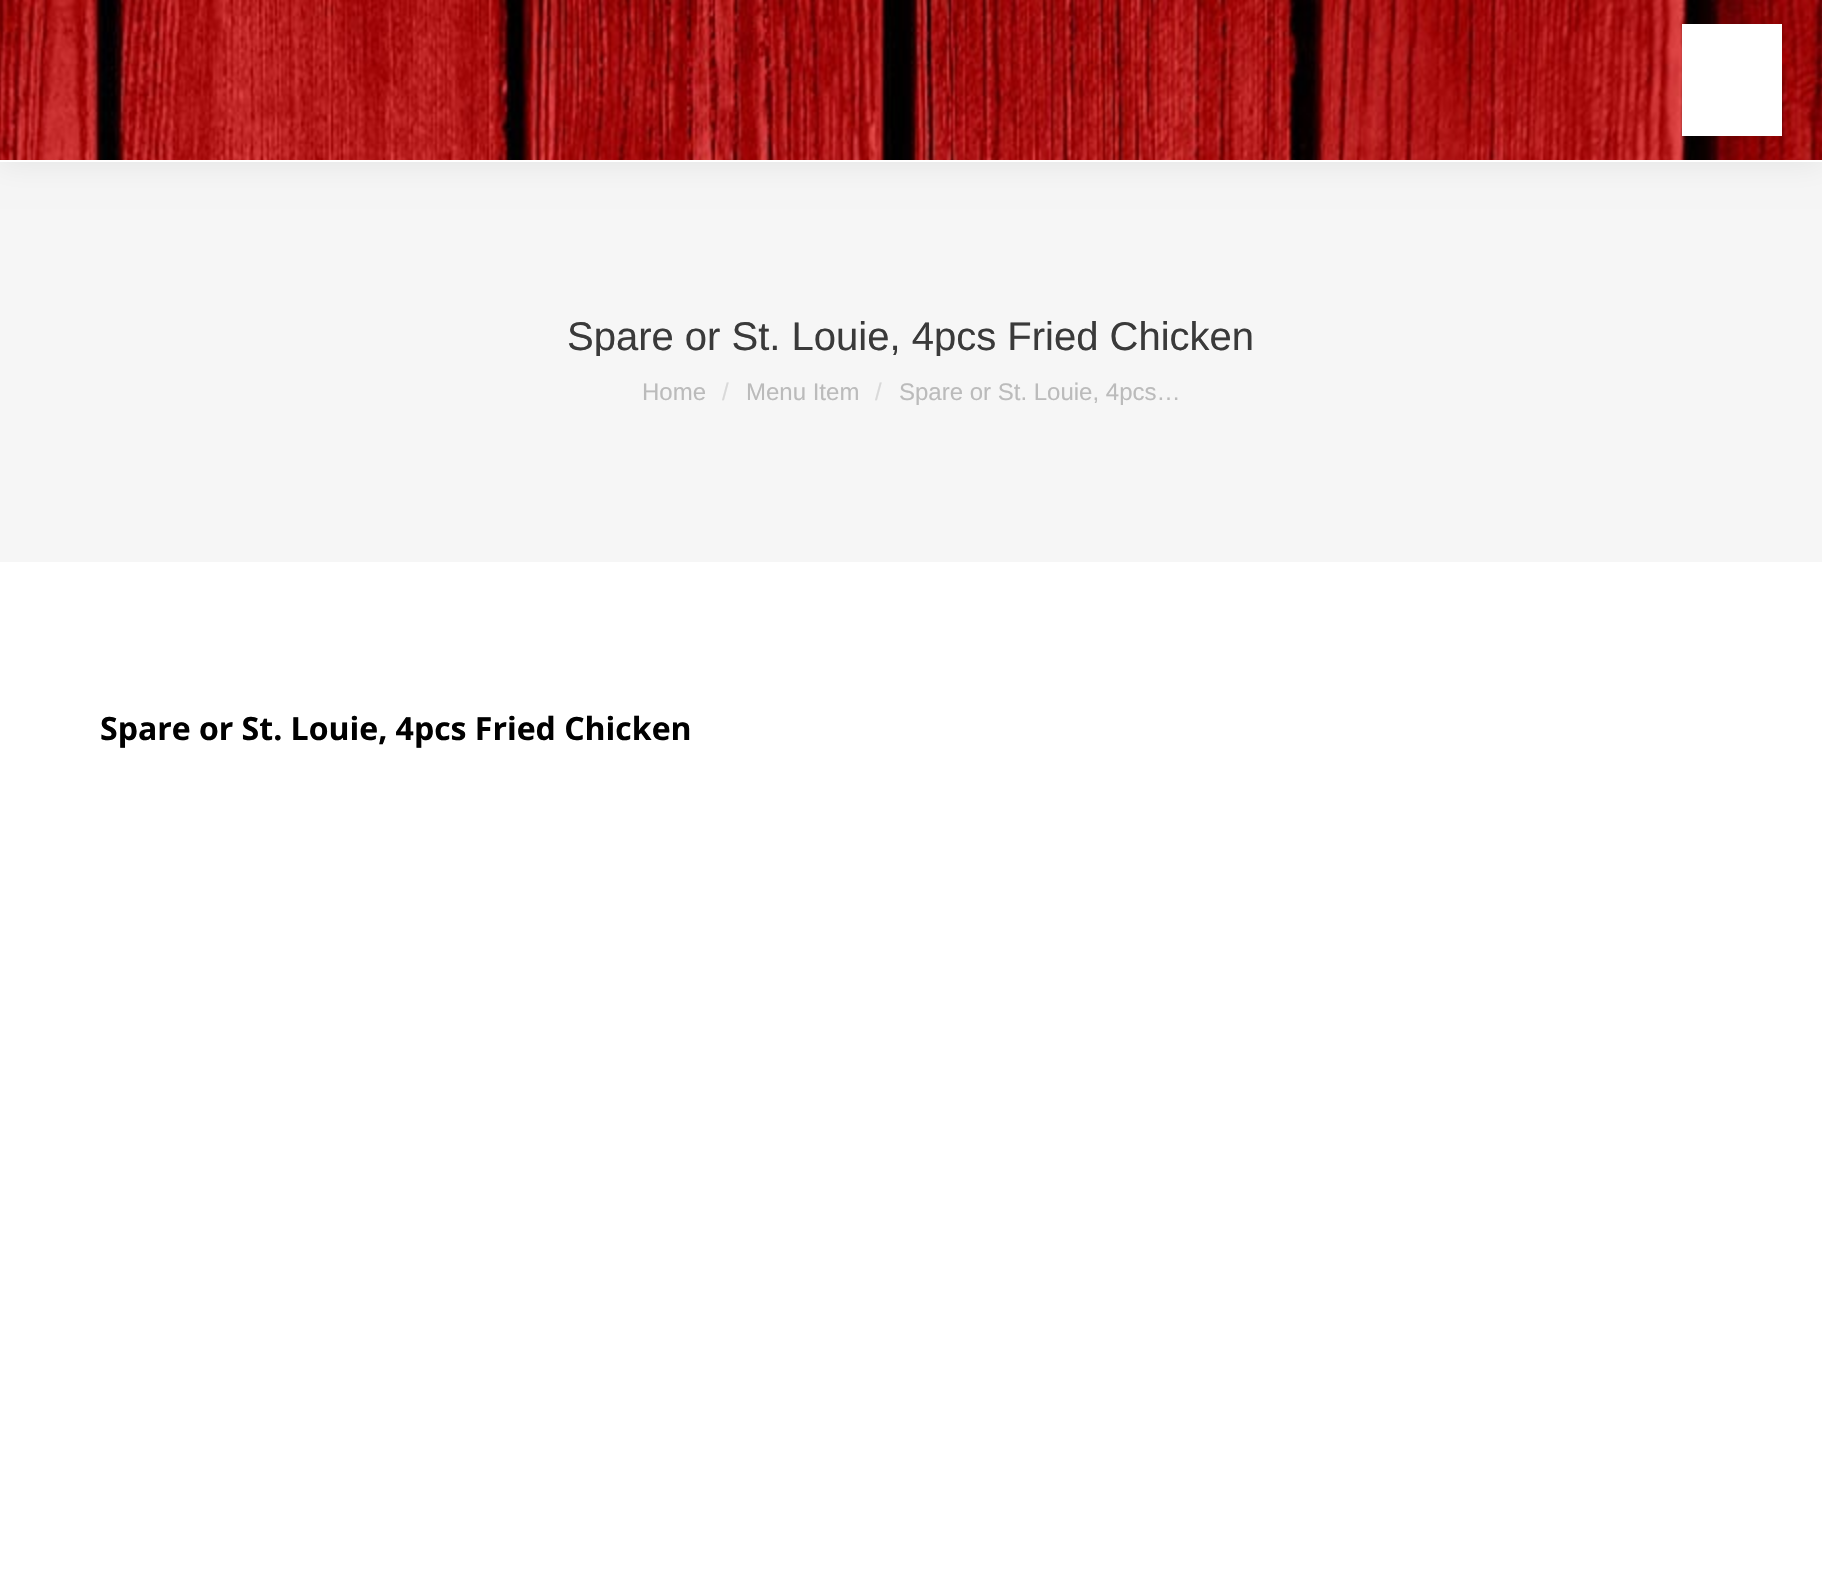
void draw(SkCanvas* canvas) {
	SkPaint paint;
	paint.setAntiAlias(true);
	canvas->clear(0xffffffff);
	paint.setColor(0xfff6f6f6);
	canvas->drawRect(SkRect::MakeXYWH(0, 162, 1822, 400), paint);
	paint.setColor(0x12000000);
	paint.setMaskFilter(SkMaskFilter::MakeBlur(kNormal_SkBlurStyle, 15));
	canvas->drawRect(SkRect::MakeXYWH(-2, -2, 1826, 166), paint);
	paint.setMaskFilter(nullptr);
	canvas->drawImageRect(SkImages::DeferredFromEncodedData(SkData::MakeFromFileName("img1.png")), SkRect::MakeXYWH(0, 0, 1822, 160), SkSamplingOptions());
	paint.setColor(0xffffffff);
	canvas->drawRect(SkRect::MakeXYWH(0, 160, 1822, 2), paint);
	canvas->drawRect(SkRect::MakeXYWH(1682, 24, 100, 112), paint);
	canvas->save();
	canvas->clipRect(SkRect::MakeXYWH(568, 316, 686, 40));
	SkFont f1(fontMgr->matchFamilyStyle("Liberation Sans", SkFontStyle::Normal()), 40);
	f1.setSubpixel(true);
	paint.setColor(0xff3a3a3a);
	canvas->drawString("Spare or St. Louie, 4pcs Fried Chicken", 567, 350, f1, paint);
	canvas->restore();
	SkFont f2(fontMgr->matchFamilyStyle("Liberation Sans", SkFontStyle::Normal()), 24);
	f2.setSubpixel(true);
	paint.setColor(0xffbbbbbb);
	canvas->drawString("Home", 642, 400, f2, paint);
	paint.setColor(0xffd9d9d9);
	canvas->drawString("/", 722, 400, f2, paint);
	paint.setColor(0xffbbbbbb);
	canvas->drawString("Menu Item", 746, 400, f2, paint);
	paint.setColor(0xffd9d9d9);
	canvas->drawString("/", 875, 400, f2, paint);
	paint.setColor(0xffbbbbbb);
	canvas->drawString("Spare or St. Louie, 4pcs…", 899, 400, f2, paint);
	SkFont f3(fontMgr->matchFamilyStyle("Open Sans", SkFontStyle::Bold()), 32);
	f3.setSubpixel(true);
	paint.setColor(0xff000000);
	canvas->drawString("Spare or St. Louie, 4pcs Fried Chicken", 100, 740, f3, paint);
}
